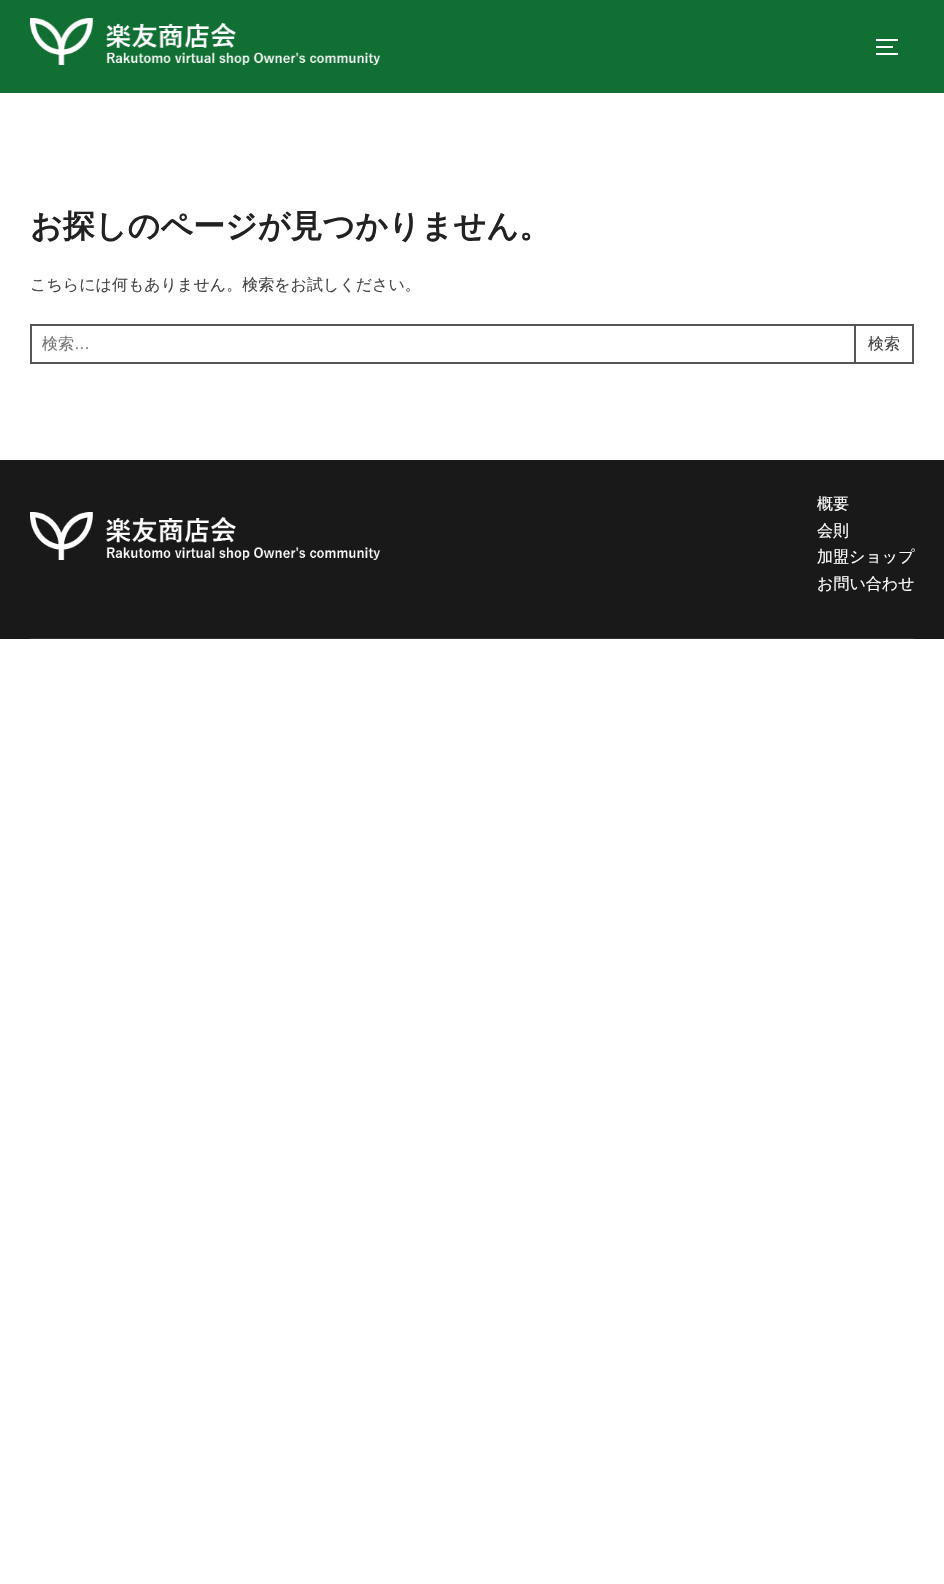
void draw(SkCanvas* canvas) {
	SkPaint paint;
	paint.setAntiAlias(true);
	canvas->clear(0xffffffff);
	paint.setColor(0xff116f34);
	canvas->drawRect(SkRect::MakeXYWH(0, 0, 944, 93), paint);
	canvas->drawImageRect(SkImages::DeferredFromEncodedData(SkData::MakeFromFileName("img1.png")), SkRect::MakeXYWH(30, 18, 350, 47), SkSamplingOptions());
	paint.setColor(0xffffffff);
	canvas->drawRect(SkRect::MakeXYWH(876, 39, 22, 2), paint);
	canvas->drawRect(SkRect::MakeXYWH(876, 46, 17, 2), paint);
	canvas->drawRect(SkRect::MakeXYWH(876, 53, 22, 2), paint);
	SkFont f1(fontMgr->matchFamilyStyle("WenQuanYi Zen Hei", SkFontStyle::Bold()), 32);
	f1.setSubpixel(true);
	paint.setColor(0xff222222);
	canvas->drawString("お探しのページが見つかりません。", 30, 237, f1, paint);
	SkFont f2(fontMgr->matchFamilyStyle("WenQuanYi Zen Hei", SkFontStyle(500, SkFontStyle::kNormal_Width, SkFontStyle::kUpright_Slant)), 16);
	f2.setSubpixel(true);
	paint.setColor(0xff444444);
	canvas->drawString("こちらには何もありません。検索をお試しください。", 30, 290, f2, paint);
	paint.setStroke(true);
	paint.setStrokeWidth(2);
	paint.setColor(0xff565555);
	canvas->drawRect(SkRect::MakeXYWH(31, 325, 882, 38), paint);
	paint.setStroke(false);
	paint.setColor(0xff757575);
	canvas->drawString("検索", 42, 349, f2, paint);
	SkFont f3(fontMgr->matchFamilyStyle("Liberation Sans", SkFontStyle::Normal()), 16);
	f3.setSubpixel(true);
	canvas->drawString("…", 74, 349, f3, paint);
	paint.setStroke(true);
	paint.setColor(0xff565555);
	canvas->drawRect(SkRect::MakeXYWH(855, 325, 58, 38), paint);
	paint.setStroke(false);
	paint.setColor(0xff444444);
	canvas->drawString("検索", 868, 349, f2, paint);
	paint.setColor(0xff191919);
	canvas->drawRect(SkRect::MakeXYWH(0, 460, 944, 179), paint);
	canvas->drawImageRect(SkImages::DeferredFromEncodedData(SkData::MakeFromFileName("img2.png")), SkRect::MakeXYWH(30, 512, 350, 48), SkSamplingOptions());
	paint.setColor(0xffffffff);
	canvas->drawString("概要", 817, 509, f2, paint);
	canvas->drawString("会則", 817, 536, f2, paint);
	canvas->drawString("加盟ショップ", 817, 562, f2, paint);
	canvas->drawString("お問い合わせ", 817, 589, f2, paint);
	paint.setColor(0xff303030);
	canvas->drawRect(SkRect::MakeXYWH(30, 638, 884, 1), paint);
}
